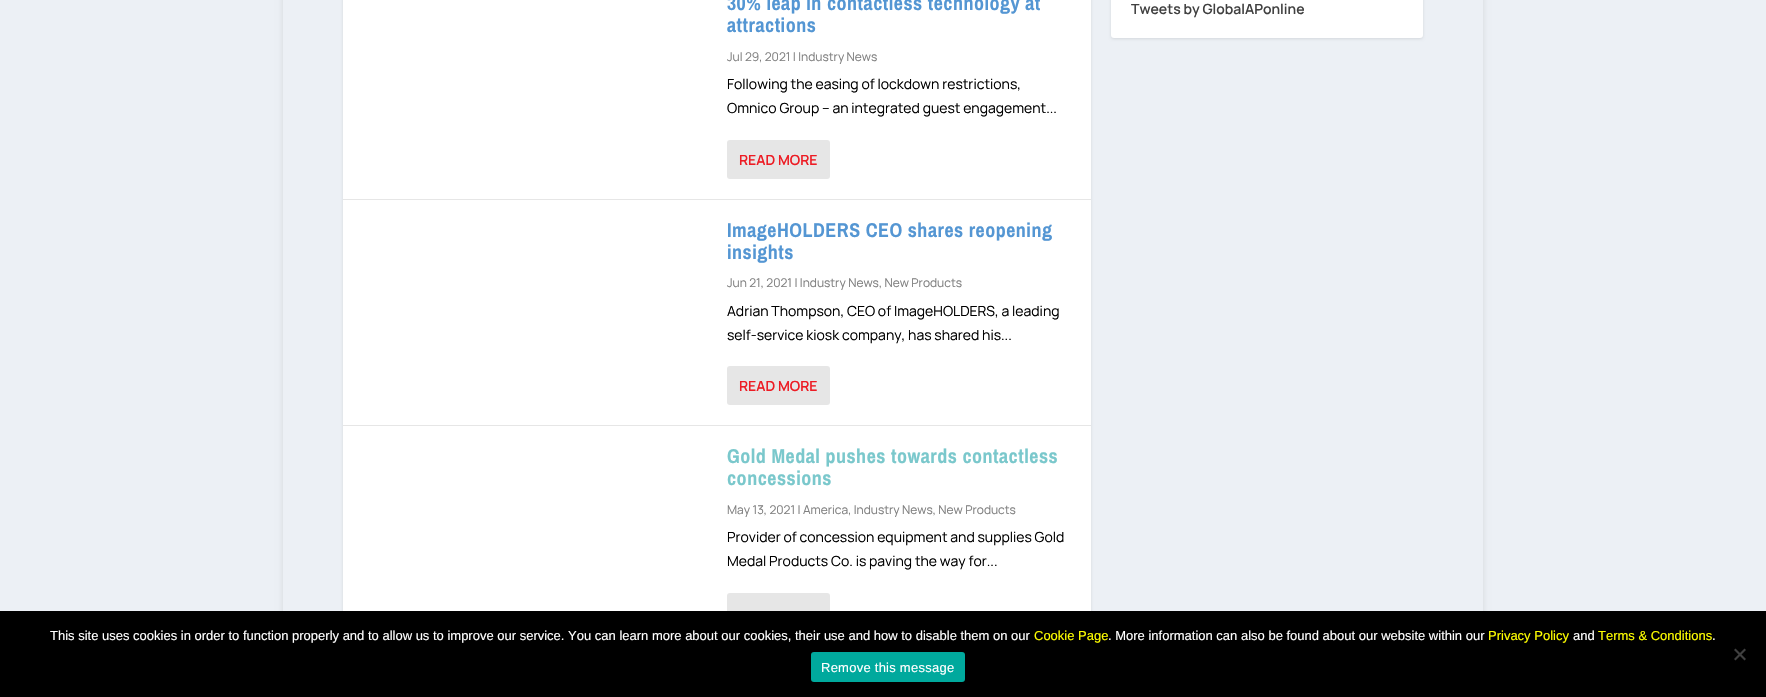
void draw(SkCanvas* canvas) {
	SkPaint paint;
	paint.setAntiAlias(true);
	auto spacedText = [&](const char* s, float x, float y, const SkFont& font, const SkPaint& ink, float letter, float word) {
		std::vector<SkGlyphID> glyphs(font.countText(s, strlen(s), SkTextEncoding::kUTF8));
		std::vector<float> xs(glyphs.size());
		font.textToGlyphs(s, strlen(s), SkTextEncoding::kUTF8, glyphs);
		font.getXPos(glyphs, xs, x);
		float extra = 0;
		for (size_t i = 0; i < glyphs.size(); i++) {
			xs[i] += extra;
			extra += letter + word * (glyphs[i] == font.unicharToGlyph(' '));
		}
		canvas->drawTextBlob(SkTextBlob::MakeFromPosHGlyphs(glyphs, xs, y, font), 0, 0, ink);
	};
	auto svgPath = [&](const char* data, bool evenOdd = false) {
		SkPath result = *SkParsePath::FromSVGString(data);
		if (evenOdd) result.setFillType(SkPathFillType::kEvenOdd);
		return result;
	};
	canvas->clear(0xffecf0f5);
	canvas->save();
	canvas->clipPath(svgPath("M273 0H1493V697H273ZM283-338H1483V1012H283Z", true), true);
	paint.setColor(0x1a000000);
	paint.setMaskFilter(SkMaskFilter::MakeBlur(kNormal_SkBlurStyle, 3));
	canvas->drawRect(SkRect::MakeXYWH(283, -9, 1200, 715), paint);
	paint.setMaskFilter(nullptr);
	canvas->restore();
	paint.setMaskFilter(SkMaskFilter::MakeBlur(kNormal_SkBlurStyle, 1.5));
	canvas->drawRoundRect(SkRect::MakeXYWH(343, -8, 748, 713), 3, 3, paint);
	paint.setMaskFilter(nullptr);
	paint.setColor(0xffffffff);
	canvas->drawRect(SkRect::MakeXYWH(343, 0, 748, 611), paint);
	paint.setColor(0xffe6e6e6);
	canvas->drawRect(SkRect::MakeXYWH(343, 199, 748, 1), paint);
	SkFont f1(fontMgr->matchFamilyStyle("Archivo Narrow", SkFontStyle::Bold()), 20);
	f1.setSubpixel(true);
	paint.setColor(0xff5496d3);
	spacedText("30% leap in contactless technology at", 727, 10, f1, paint, 0.5, 0);
	spacedText("attractions", 727, 32, f1, paint, 0.5, 0);
	SkFont f2(fontMgr->matchFamilyStyle("Manrope", SkFontStyle::Normal()), 12);
	f2.setSubpixel(true);
	paint.setColor(0xff808080);
	canvas->drawString("Jul 29, 2021 | Industry News", 727, 61, f2, paint);
	SkFont f3(fontMgr->matchFamilyStyle("Manrope", SkFontStyle::Normal()), 14);
	f3.setSubpixel(true);
	paint.setColor(0xff000000);
	canvas->drawString("Following the easing of lockdown restrictions,", 727, 89, f3, paint);
	canvas->drawString("Omnico Group – an integrated guest engagement...", 727, 113, f3, paint);
	paint.setColor(0xffe6e6e6);
	canvas->drawRoundRect(SkRect::MakeXYWH(727, 140, 103, 39), 3, 3, paint);
	SkFont f4(fontMgr->matchFamilyStyle("Manrope", SkFontStyle(600, SkFontStyle::kNormal_Width, SkFontStyle::kUpright_Slant)), 14);
	f4.setSubpixel(true);
	paint.setColor(0xffed1c24);
	canvas->drawString("READ MORE", 739, 165, f4, paint);
	paint.setColor(0xffe6e6e6);
	canvas->drawRect(SkRect::MakeXYWH(343, 425, 748, 1), paint);
	paint.setColor(0xff5496d3);
	spacedText("ImageHOLDERS CEO shares reopening", 727, 237, f1, paint, 0.5, 0);
	spacedText("insights", 727, 259, f1, paint, 0.5, 0);
	paint.setColor(0xff808080);
	canvas->drawString("Jun 21, 2021 | Industry News, New Products", 727, 287, f2, paint);
	paint.setColor(0xff000000);
	canvas->drawString("Adrian Thompson, CEO of ImageHOLDERS, a leading", 727, 316, f3, paint);
	canvas->drawString("self-service kiosk company, has shared his...", 727, 340, f3, paint);
	paint.setColor(0xffe6e6e6);
	canvas->drawRoundRect(SkRect::MakeXYWH(727, 366, 103, 39), 3, 3, paint);
	paint.setColor(0xffed1c24);
	canvas->drawString("READ MORE", 739, 391, f4, paint);
	paint.setColor(0xff7ac8cc);
	spacedText("Gold Medal pushes towards contactless", 727, 463, f1, paint, 0.5, 0);
	spacedText("concessions", 727, 485, f1, paint, 0.5, 0);
	paint.setColor(0xff808080);
	canvas->drawString("May 13, 2021 | America, Industry News, New Products", 727, 514, f2, paint);
	paint.setColor(0xff000000);
	canvas->drawString("Provider of concession equipment and supplies Gold", 727, 542, f3, paint);
	canvas->drawString("Medal Products Co. is paving the way for...", 727, 566, f3, paint);
	paint.setColor(0xffe6e6e6);
	canvas->drawRoundRect(SkRect::MakeXYWH(727, 593, 103, 39), 3, 3, paint);
	paint.setColor(0x1a000000);
	paint.setMaskFilter(SkMaskFilter::MakeBlur(kNormal_SkBlurStyle, 1.5));
	canvas->drawRoundRect(SkRect::MakeXYWH(1111, -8, 312, 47), 3, 3, paint);
	paint.setMaskFilter(nullptr);
	paint.setColor(0xffffffff);
	canvas->drawRoundRect(SkRect::MakeXYWH(1111, -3, 312, 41), 3, 3, paint);
	paint.setColor(0xff404040);
	canvas->drawString("Tweets by GlobalAPonline", 1131, 14, f4, paint);
	paint.setColor(0xff000000);
	canvas->drawRect(SkRect::MakeXYWH(0, 611, 1766, 86), paint);
	SkFont f5(fontMgr->matchFamilyStyle("Liberation Sans", SkFontStyle::Normal()), 13);
	f5.setSubpixel(true);
	paint.setColor(0xffffffff);
	canvas->drawString("This site uses cookies in order to function properly and to allow us to improve our service. You can learn more about our cookies, their use and how to disable them on our", 50, 640, f5, paint);
	paint.setColor(0xffffff00);
	canvas->drawString("Cookie Page", 1034, 640, f5, paint);
	paint.setColor(0xffffffff);
	canvas->drawString(". More information can also be found about our website within our", 1108, 640, f5, paint);
	paint.setColor(0xffffff00);
	canvas->drawString("Privacy Policy", 1488, 640, f5, paint);
	paint.setColor(0xffffffff);
	canvas->drawString("and", 1573, 640, f5, paint);
	paint.setColor(0xffffff00);
	canvas->drawString("Terms & Conditions", 1598, 640, f5, paint);
	paint.setColor(0xffffffff);
	canvas->drawString(".", 1712, 640, f5, paint);
	paint.setColor(0xff404040);
	canvas->drawPath(svgPath("M1744.5 648.5L1746 650L1735.5 660.5L1734 659Z"), paint);
	canvas->drawPath(svgPath("M1734 650L1735.5 648.5L1746 659L1744.5 660.5Z"), paint);
	paint.setColor(0xff00a99d);
	canvas->drawRoundRect(SkRect::MakeXYWH(811, 652, 154, 30), 3, 3, paint);
	paint.setColor(0xffffffff);
	spacedText("Remove this message", 821, 672, f5, paint, 0.25, 0);
}
